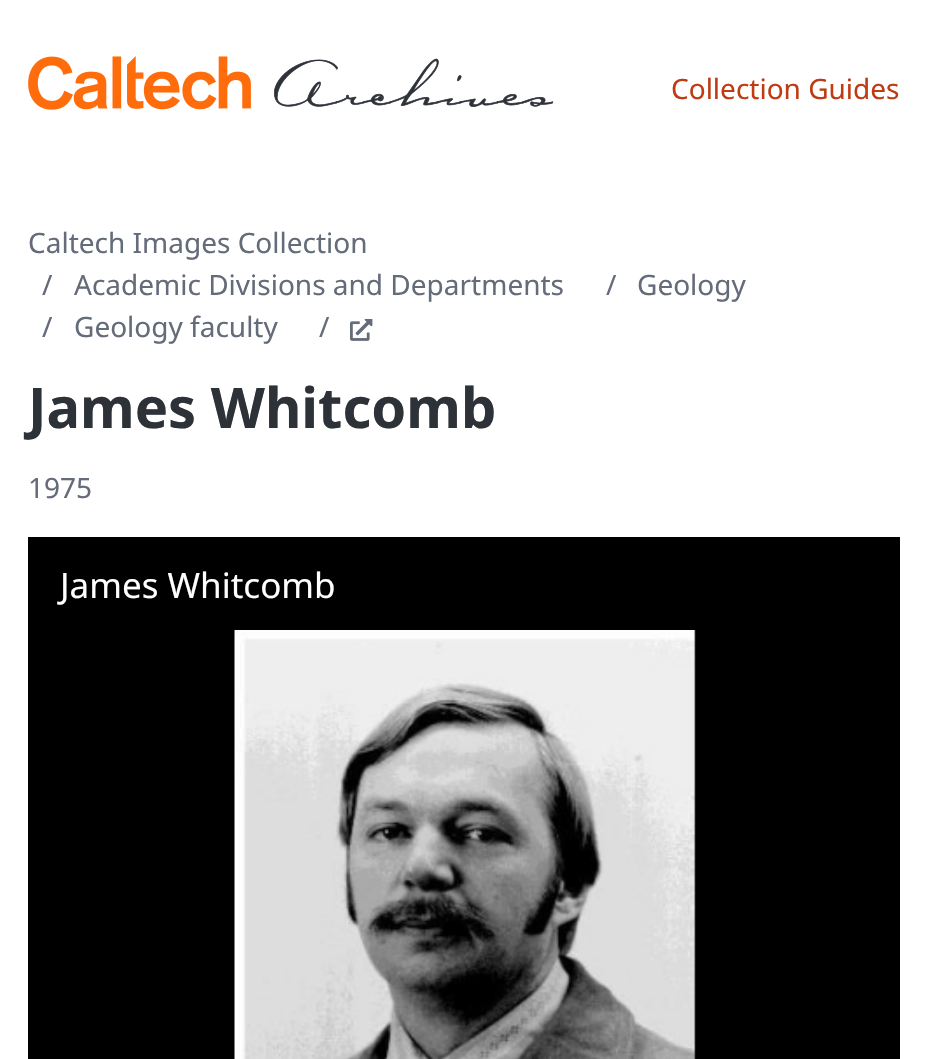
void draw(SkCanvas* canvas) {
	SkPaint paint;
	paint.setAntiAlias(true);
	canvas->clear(0xffffffff);
	canvas->drawImageRect(SkImages::DeferredFromEncodedData(SkData::MakeFromFileName("img1.png")), SkRect::MakeXYWH(28, 56, 526, 54), SkSamplingOptions());
	SkFont f1(fontMgr->matchFamilyStyle("Noto Sans", SkFontStyle::Normal()), 28);
	f1.setSubpixel(true);
	paint.setColor(0xffbd3c13);
	canvas->drawString("Collection Guides", 671, 99, f1, paint);
	paint.setColor(0xff646b79);
	canvas->drawString("Caltech Images Collection", 28, 253, f1, paint);
	canvas->drawString("/", 42, 295, f1, paint);
	canvas->drawString("Academic Divisions and Departments", 74, 295, f1, paint);
	canvas->drawString("/", 606, 295, f1, paint);
	canvas->drawString("Geology", 637, 295, f1, paint);
	canvas->drawString("/", 42, 337, f1, paint);
	canvas->drawString("Geology faculty", 74, 337, f1, paint);
	canvas->drawString("/", 319, 337, f1, paint);
	canvas->drawImageRect(SkImages::DeferredFromEncodedData(SkData::MakeFromFileName("img2.png")), SkRect::MakeXYWH(350, 319, 23, 22), SkSamplingOptions());
	SkFont f2(fontMgr->matchFamilyStyle("Noto Sans", SkFontStyle::Bold()), 56);
	f2.setSubpixel(true);
	paint.setColor(0xff2d3138);
	canvas->drawString("James Whitcomb", 28, 428, f2, paint);
	paint.setColor(0xff646b79);
	canvas->drawString("1975", 28, 498, f1, paint);
	paint.setColor(0xff000000);
	canvas->drawRect(SkRect::MakeXYWH(28, 537, 872, 522), paint);
	SkFont f3(fontMgr->matchFamilyStyle("Noto Sans", SkFontStyle::Normal()), 35);
	f3.setSubpixel(true);
	paint.setColor(0xffffffff);
	canvas->drawString("James Whitcomb", 60, 598, f3, paint);
	canvas->drawImageRect(SkImages::DeferredFromEncodedData(SkData::MakeFromFileName("img3.png")), SkRect::MakeXYWH(234, 630, 462, 429), SkSamplingOptions());
}
